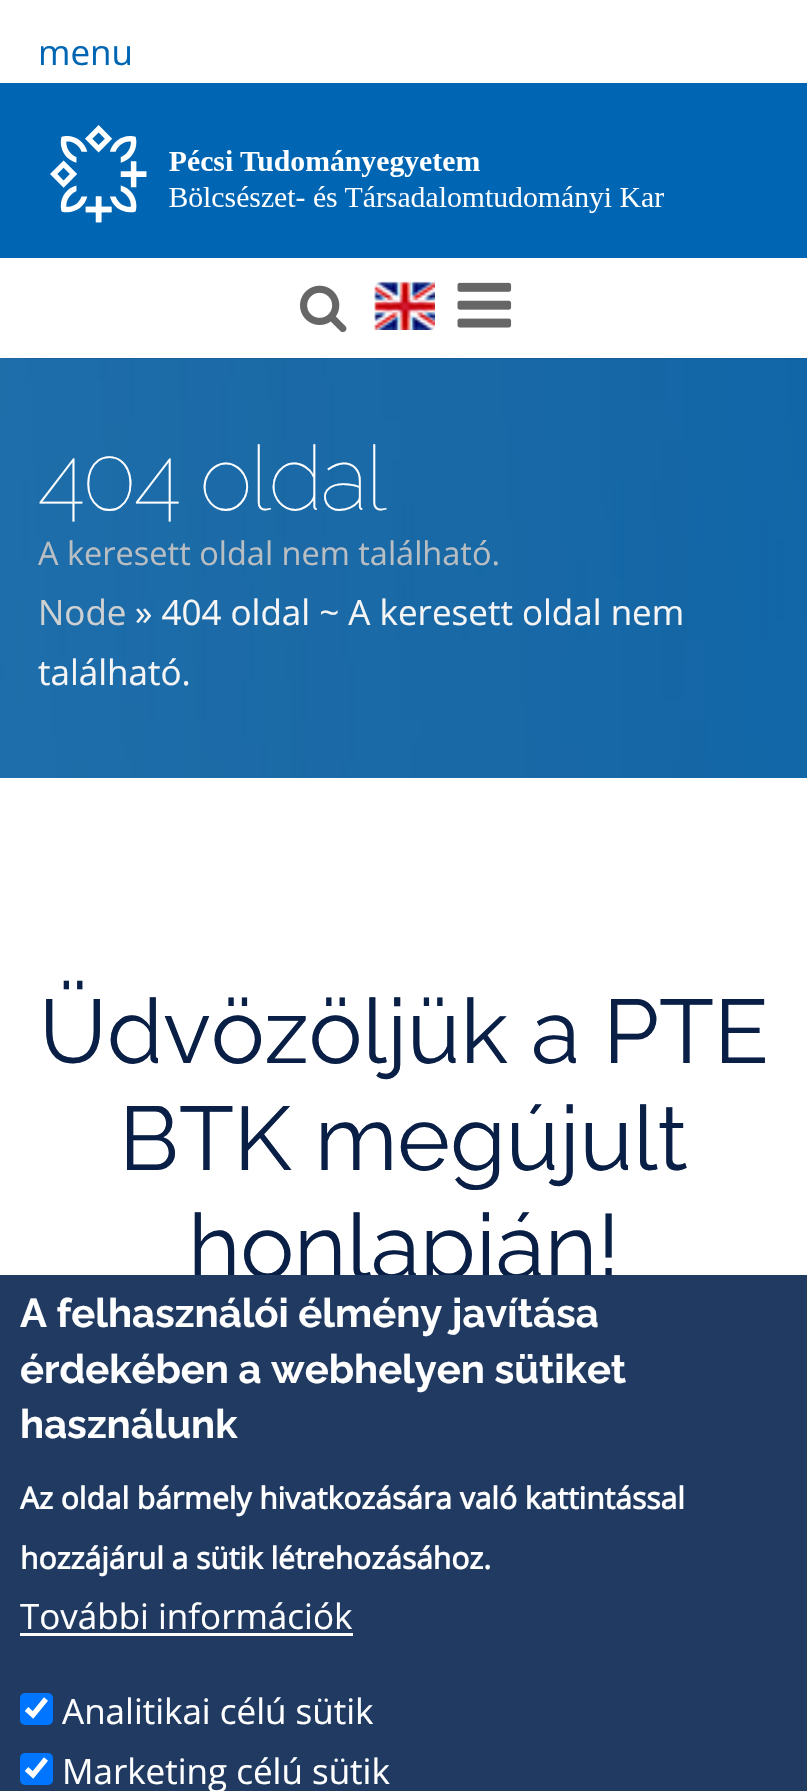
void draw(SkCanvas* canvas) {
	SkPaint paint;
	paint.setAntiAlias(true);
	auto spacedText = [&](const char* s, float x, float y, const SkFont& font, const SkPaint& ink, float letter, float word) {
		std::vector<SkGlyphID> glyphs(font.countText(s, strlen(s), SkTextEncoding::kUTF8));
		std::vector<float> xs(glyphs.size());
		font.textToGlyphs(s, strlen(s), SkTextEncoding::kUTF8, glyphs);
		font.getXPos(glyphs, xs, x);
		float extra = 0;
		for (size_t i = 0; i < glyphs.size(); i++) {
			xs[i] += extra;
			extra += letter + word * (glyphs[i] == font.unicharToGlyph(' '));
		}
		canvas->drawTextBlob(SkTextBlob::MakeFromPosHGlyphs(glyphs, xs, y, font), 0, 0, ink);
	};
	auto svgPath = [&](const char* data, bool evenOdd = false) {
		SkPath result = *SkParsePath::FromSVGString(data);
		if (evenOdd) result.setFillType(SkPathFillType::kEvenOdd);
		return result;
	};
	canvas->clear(0xffffffff);
	SkFont f1(fontMgr->matchFamilyStyle("Open Sans", SkFontStyle::Normal()), 35);
	f1.setSubpixel(true);
	paint.setColor(0xff0066b3);
	canvas->drawString("menu", 38, 65, f1, paint);
	canvas->drawRect(SkRect::MakeXYWH(0, 83, 807, 175), paint);
	canvas->drawImageRect(SkImages::DeferredFromEncodedData(SkData::MakeFromFileName("img1.png")), SkRect::MakeXYWH(50, 125, 614, 98), SkSamplingOptions());
	canvas->drawImageRect(SkImages::DeferredFromEncodedData(SkData::MakeFromFileName("img5.png")), SkRect::MakeXYWH(0, 358, 807, 420), SkSamplingOptions());
	paint.setColor(0x33000000);
	paint.setMaskFilter(SkMaskFilter::MakeBlur(kNormal_SkBlurStyle, 1));
	canvas->drawRect(SkRect::MakeXYWH(3, 263, 802, 95), paint);
	paint.setMaskFilter(nullptr);
	paint.setColor(0xffffffff);
	canvas->drawRect(SkRect::MakeXYWH(1, 261, 806, 97), paint);
	canvas->drawImageRect(SkImages::DeferredFromEncodedData(SkData::MakeFromFileName("img2.png")), SkRect::MakeXYWH(300, 285, 47, 48), SkSamplingOptions());
	canvas->drawImageRect(SkImages::DeferredFromEncodedData(SkData::MakeFromFileName("img3.png")), SkRect::MakeXYWH(374, 281, 61, 49), SkSamplingOptions());
	canvas->drawImageRect(SkImages::DeferredFromEncodedData(SkData::MakeFromFileName("img4.png")), SkRect::MakeXYWH(457, 282, 55, 46), SkSamplingOptions());
	SkFont f2(fontMgr->matchFamilyStyle("Raleway", SkFontStyle(100, SkFontStyle::kNormal_Width, SkFontStyle::kUpright_Slant)), 90);
	f2.setSubpixel(true);
	spacedText("404 oldal", 38, 510, f2, paint, -2.5, 0);
	SkFont f3(fontMgr->matchFamilyStyle("Open Sans", SkFontStyle::Normal()), 32.5);
	f3.setSubpixel(true);
	paint.setColor(0xffb9bec3);
	canvas->drawString("A keresett oldal nem található.", 38, 565, f3, paint);
	paint.setColor(0xffcfd0d1);
	canvas->drawString("Node", 38, 625, f1, paint);
	paint.setColor(0xfff6f5f5);
	canvas->drawString("» 404 oldal ~ A keresett oldal nem", 135, 625, f1, paint);
	canvas->drawString("található.", 38, 685, f1, paint);
	SkFont f4(fontMgr->matchFamilyStyle("Raleway", SkFontStyle::Normal()), 90);
	f4.setSubpixel(true);
	paint.setColor(0xff091f46);
	canvas->drawString("Üdvözöljük a PTE", 39, 1063, f4, paint);
	canvas->drawString("BTK megújult", 119, 1170, f4, paint);
	canvas->drawString("honlapján!", 188, 1278, f4, paint);
	paint.setColor(0xff203a62);
	canvas->drawRect(SkRect::MakeXYWH(0, 1275, 807, 516), paint);
	SkFont f5(fontMgr->matchFamilyStyle("Raleway", SkFontStyle::Bold()), 40);
	f5.setSubpixel(true);
	paint.setColor(0xffffffff);
	canvas->drawString("A felhasználói élmény javítása", 20, 1327, f5, paint);
	canvas->drawString("érdekében a webhelyen sütiket", 20, 1383, f5, paint);
	canvas->drawString("használunk", 20, 1438, f5, paint);
	SkFont f6(fontMgr->matchFamilyStyle("Open Sans", SkFontStyle::Bold()), 30);
	f6.setSubpixel(true);
	canvas->drawString("Az oldal bármely hivatkozására való kattintással", 20, 1509, f6, paint);
	canvas->drawString("hozzájárul a sütik létrehozásához.", 20, 1569, f6, paint);
	canvas->drawString("További információk", 20, 1629, f1, paint);
	canvas->drawRect(SkRect::MakeXYWH(20, 1633, 333, 3), paint);
	paint.setColor(0xff0075ff);
	canvas->drawRoundRect(SkRect::MakeXYWH(20, 1693, 33, 32), 5, 5, paint);
	paint.setStroke(true);
	paint.setStrokeWidth(5.2);
	paint.setColor(0xffffffff);
	canvas->drawPath(svgPath("M26.5 1709L33 1715L46 1699"), paint);
	paint.setStroke(false);
	canvas->drawString("Analitikai célú sütik", 62, 1724, f1, paint);
	paint.setColor(0xff0075ff);
	canvas->drawRoundRect(SkRect::MakeXYWH(20, 1753, 33, 32), 5, 5, paint);
	paint.setStroke(true);
	paint.setColor(0xffffffff);
	canvas->drawPath(svgPath("M26.5 1769L33 1775L46 1759"), paint);
	paint.setStroke(false);
	canvas->drawString("Marketing célú sütik", 62, 1784, f1, paint);
}
